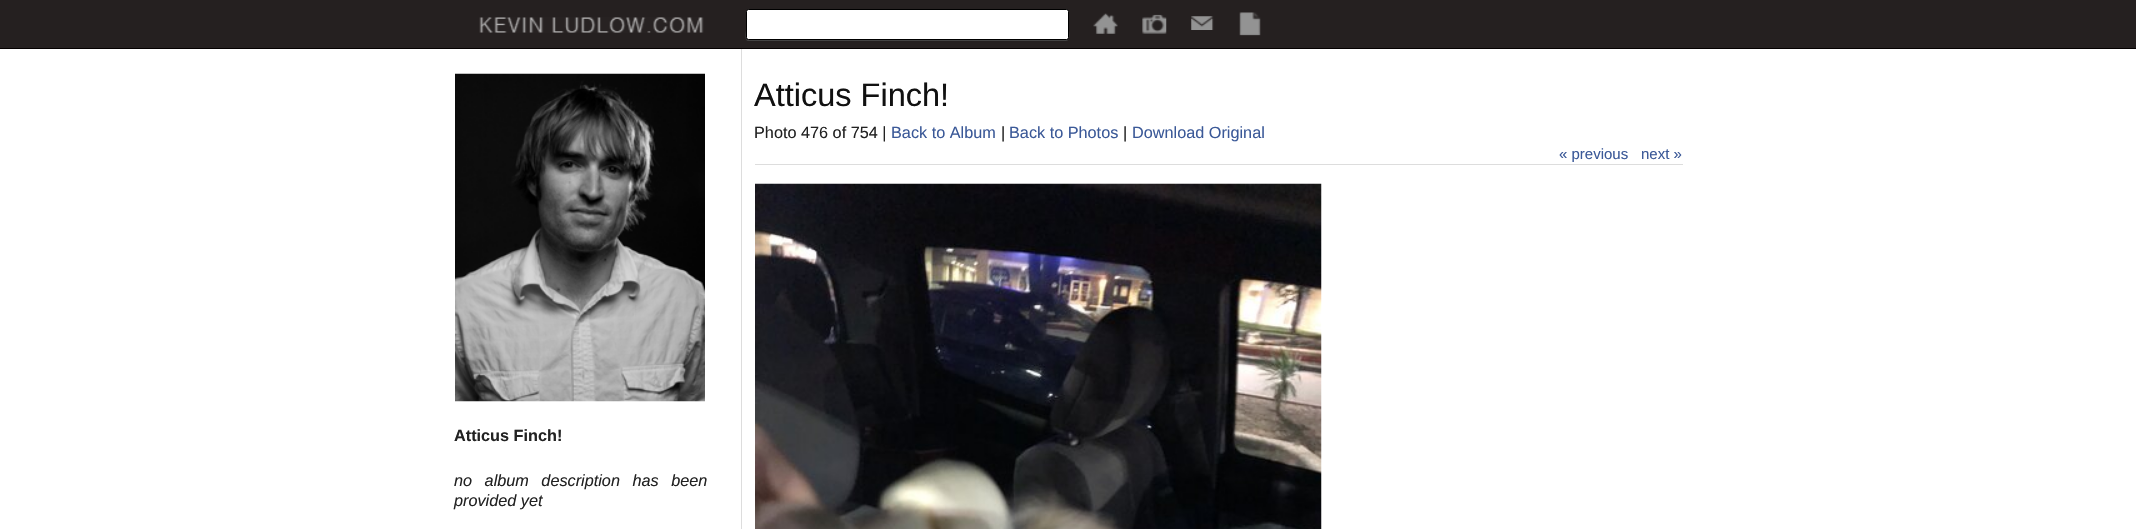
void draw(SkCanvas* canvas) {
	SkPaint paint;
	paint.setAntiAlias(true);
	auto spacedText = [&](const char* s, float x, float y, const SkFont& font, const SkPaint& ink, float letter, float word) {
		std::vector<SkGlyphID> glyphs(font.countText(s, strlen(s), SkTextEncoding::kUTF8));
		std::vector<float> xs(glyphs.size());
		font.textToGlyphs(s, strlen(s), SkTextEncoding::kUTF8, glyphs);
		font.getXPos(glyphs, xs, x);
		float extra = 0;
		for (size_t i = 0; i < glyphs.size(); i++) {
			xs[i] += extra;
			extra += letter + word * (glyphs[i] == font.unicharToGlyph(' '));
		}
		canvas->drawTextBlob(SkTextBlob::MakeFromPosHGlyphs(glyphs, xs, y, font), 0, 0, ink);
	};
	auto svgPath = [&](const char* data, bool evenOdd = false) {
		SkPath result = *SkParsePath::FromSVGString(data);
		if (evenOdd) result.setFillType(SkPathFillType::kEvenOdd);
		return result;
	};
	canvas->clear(0xffffffff);
	paint.setColor(0xff252020);
	canvas->drawRect(SkRect::MakeXYWH(0, 0, 2136, 48), paint);
	paint.setColor(0xff040000);
	canvas->drawRect(SkRect::MakeXYWH(0, 48, 2136, 1), paint);
	canvas->drawImageRect(SkImages::DeferredFromEncodedData(SkData::MakeFromFileName("img1.png")), SkRect::MakeXYWH(479, 17, 225, 16), SkSamplingOptions());
	paint.setColor(0xff444444);
	canvas->drawPath(svgPath("M746 11V30C746 32 744 41 748 41H1066C1071 41 1069 32 1069 30V11V38C1069 39 1068 40 1066 40H749C747 40 746 39 746 38Z"), paint);
	paint.setColor(0xffffffff);
	canvas->drawRoundRect(SkRect::MakeXYWH(746.5, 9.5, 322, 30), 2, 2, paint);
	paint.setStroke(true);
	paint.setStrokeWidth(1);
	paint.setColor(0xff000000);
	canvas->drawRoundRect(SkRect::MakeXYWH(746.5, 9.5, 322, 30), 2, 2, paint);
	canvas->drawImageRect(SkImages::DeferredFromEncodedData(SkData::MakeFromFileName("img2.png")), SkRect::MakeXYWH(1093, 13, 25, 21), SkSamplingOptions());
	canvas->drawImageRect(SkImages::DeferredFromEncodedData(SkData::MakeFromFileName("img3.png")), SkRect::MakeXYWH(1142, 14, 25, 20), SkSamplingOptions());
	canvas->drawImageRect(SkImages::DeferredFromEncodedData(SkData::MakeFromFileName("img4.png")), SkRect::MakeXYWH(1191, 16, 23, 14), SkSamplingOptions());
	canvas->drawImageRect(SkImages::DeferredFromEncodedData(SkData::MakeFromFileName("img5.png")), SkRect::MakeXYWH(1239, 12, 22, 24), SkSamplingOptions());
	paint.setStroke(false);
	paint.setColor(0xffdddddd);
	canvas->drawRect(SkRect::MakeXYWH(755, 164, 928, 1), paint);
	SkFont f1(fontMgr->matchFamilyStyle("Liberation Sans", SkFontStyle::Normal()), 32.5);
	f1.setSubpixel(true);
	paint.setColor(0xff111111);
	canvas->drawString("Atticus Finch!", 754, 106, f1, paint);
	SkFont f2(fontMgr->matchFamilyStyle("Liberation Sans", SkFontStyle::Normal()), 16.25);
	f2.setSubpixel(true);
	paint.setColor(0xff222222);
	canvas->drawString("Photo 476 of 754 |", 754, 138, f2, paint);
	paint.setColor(0xff3b5998);
	canvas->drawString("Back to Album", 891, 138, f2, paint);
	paint.setColor(0xff222222);
	canvas->drawString("|", 1001, 138, f2, paint);
	paint.setColor(0xff3b5998);
	canvas->drawString("Back to Photos", 1009, 138, f2, paint);
	paint.setColor(0xff222222);
	canvas->drawString("|", 1123, 138, f2, paint);
	paint.setColor(0xff3b5998);
	canvas->drawString("Download Original", 1132, 138, f2, paint);
	SkFont f3(fontMgr->matchFamilyStyle("Liberation Sans", SkFontStyle::Normal()), 15);
	f3.setSubpixel(true);
	canvas->drawString("« previous", 1559, 159, f3, paint);
	canvas->drawString("next »", 1641, 159, f3, paint);
	canvas->drawImageRect(SkImages::DeferredFromEncodedData(SkData::MakeFromFileName("img6.png")), SkRect::MakeXYWH(755, 183, 567, 346), SkSamplingOptions());
	paint.setColor(0xffdddddd);
	canvas->drawRect(SkRect::MakeXYWH(741, 49, 1, 480), paint);
	canvas->drawImageRect(SkImages::DeferredFromEncodedData(SkData::MakeFromFileName("img7.png")), SkRect::MakeXYWH(455, 73, 250, 329), SkSamplingOptions());
	SkFont f4(fontMgr->matchFamilyStyle("Liberation Sans", SkFontStyle::Bold()), 16.25);
	f4.setSubpixel(true);
	paint.setColor(0xff222222);
	canvas->drawString("Atticus Finch!", 454, 441, f4, paint);
	SkFont f5(fontMgr->matchFamilyStyle("Liberation Sans", SkFontStyle::Italic()), 16.25);
	f5.setSubpixel(true);
	spacedText("no album description has been", 454, 486, f5, paint, 0, 8);
	canvas->drawString("provided yet", 454, 506, f5, paint);
}
